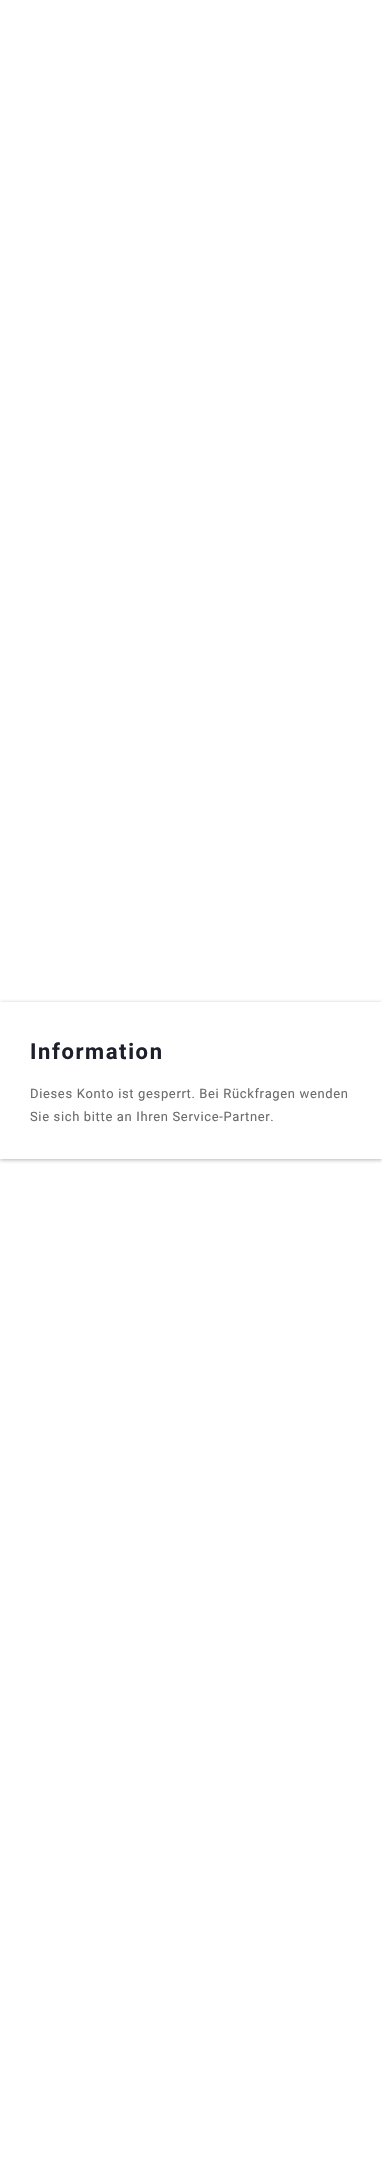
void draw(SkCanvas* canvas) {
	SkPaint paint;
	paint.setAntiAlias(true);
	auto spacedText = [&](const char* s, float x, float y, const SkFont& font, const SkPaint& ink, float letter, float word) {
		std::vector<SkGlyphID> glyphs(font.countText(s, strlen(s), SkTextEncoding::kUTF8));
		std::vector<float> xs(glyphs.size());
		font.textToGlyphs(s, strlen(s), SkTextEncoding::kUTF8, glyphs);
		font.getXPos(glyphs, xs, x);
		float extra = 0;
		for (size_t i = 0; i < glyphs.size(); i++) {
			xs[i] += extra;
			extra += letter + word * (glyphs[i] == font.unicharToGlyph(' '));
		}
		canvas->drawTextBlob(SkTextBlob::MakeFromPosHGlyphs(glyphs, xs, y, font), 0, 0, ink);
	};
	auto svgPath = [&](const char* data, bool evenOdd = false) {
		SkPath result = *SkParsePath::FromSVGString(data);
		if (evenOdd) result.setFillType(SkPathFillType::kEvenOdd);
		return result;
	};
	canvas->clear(0xffffffff);
	canvas->save();
	canvas->clipPath(svgPath("M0 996H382V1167H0ZM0 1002H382V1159H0Z", true), true);
	paint.setColor(0x4d0d0d0d);
	paint.setMaskFilter(SkMaskFilter::MakeBlur(kNormal_SkBlurStyle, 2));
	canvas->drawRect(SkRect::MakeXYWH(0, 1003, 382, 157), paint);
	paint.setMaskFilter(nullptr);
	canvas->restore();
	SkFont f1(fontMgr->matchFamilyStyle("Roboto", SkFontStyle::Bold()), 22);
	f1.setSubpixel(true);
	paint.setColor(0xff1e1f2c);
	spacedText("Information", 30, 1059, f1, paint, 1.6, 0);
	SkFont f2(fontMgr->matchFamilyStyle("Roboto", SkFontStyle::Normal()), 13);
	f2.setSubpixel(true);
	paint.setColor(0xff6b6b6e);
	spacedText("Dieses Konto ist gesperrt. Bei Rückfragen wenden", 30, 1098, f2, paint, 0.65, 0);
	spacedText("Sie sich bitte an Ihren Service-Partner.", 30, 1121, f2, paint, 0.65, 0);
}
